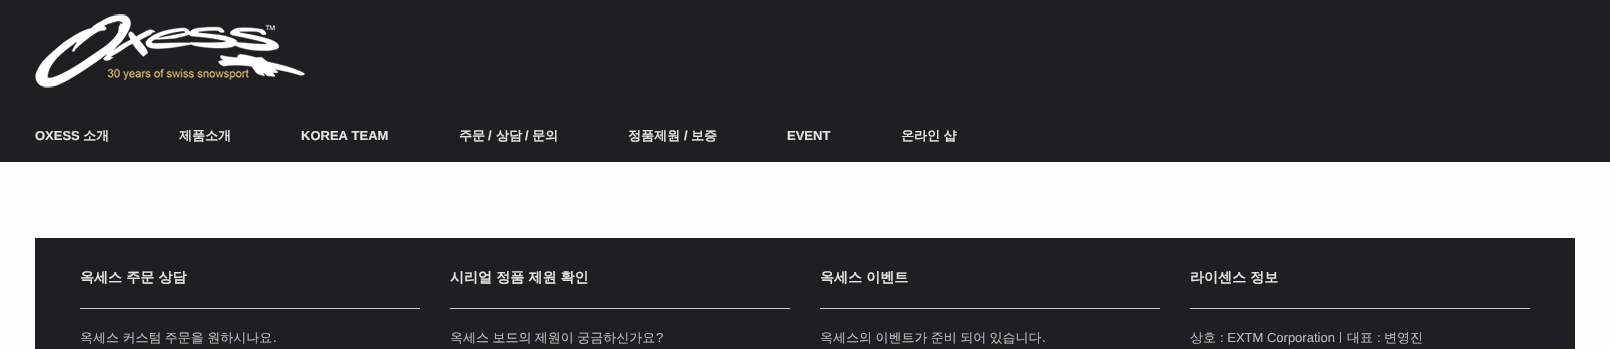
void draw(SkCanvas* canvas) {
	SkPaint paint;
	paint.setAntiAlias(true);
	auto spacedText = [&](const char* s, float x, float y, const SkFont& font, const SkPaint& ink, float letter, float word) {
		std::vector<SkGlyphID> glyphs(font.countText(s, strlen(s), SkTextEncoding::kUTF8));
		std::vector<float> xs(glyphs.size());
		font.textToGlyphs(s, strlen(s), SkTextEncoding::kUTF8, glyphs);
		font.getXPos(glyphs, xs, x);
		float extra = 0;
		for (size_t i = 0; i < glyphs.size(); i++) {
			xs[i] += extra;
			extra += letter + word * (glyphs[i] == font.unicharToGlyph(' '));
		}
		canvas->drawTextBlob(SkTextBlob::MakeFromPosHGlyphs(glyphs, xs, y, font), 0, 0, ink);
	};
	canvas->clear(0xff1f1f21);
	canvas->drawImageRect(SkImages::DeferredFromEncodedData(SkData::MakeFromFileName("img1.png")), SkRect::MakeXYWH(35, 14, 270, 74), SkSamplingOptions());
	SkFont f1(fontMgr->matchFamilyStyle("Liberation Sans", SkFontStyle::Bold()), 13);
	f1.setSubpixel(true);
	paint.setColor(0xffe2e2e2);
	canvas->drawString("OXESS", 35, 140, f1, paint);
	SkFont f2(fontMgr->matchFamilyStyle("WenQuanYi Zen Hei", SkFontStyle::Bold()), 13);
	f2.setSubpixel(true);
	canvas->drawString("소개", 83, 140, f2, paint);
	canvas->drawString("제품소개", 179, 140, f2, paint);
	canvas->drawString("KOREA TEAM", 301, 140, f1, paint);
	canvas->drawString("주문", 459, 140, f2, paint);
	canvas->drawString("/", 488, 140, f1, paint);
	canvas->drawString("상담", 496, 140, f2, paint);
	canvas->drawString("/", 525, 140, f1, paint);
	canvas->drawString("문의", 532, 140, f2, paint);
	canvas->drawString("정품제원", 628, 140, f2, paint);
	canvas->drawString("/", 684, 140, f1, paint);
	canvas->drawString("보증", 691, 140, f2, paint);
	canvas->drawString("EVENT", 787, 140, f1, paint);
	spacedText("온라인 샵", 901, 140, f2, paint, 0, -0.5);
	paint.setColor(0xfffcfcfc);
	canvas->drawRect(SkRect::MakeXYWH(0, 162, 1610, 187), paint);
	paint.setColor(0xff1f1f21);
	canvas->drawRect(SkRect::MakeXYWH(35, 238, 1540, 111), paint);
	SkFont f3(fontMgr->matchFamilyStyle("WenQuanYi Zen Hei", SkFontStyle::Bold()), 14);
	f3.setSubpixel(true);
	paint.setColor(0xffe2e2e2);
	canvas->drawString("옥세스 주문 상담", 80, 282, f3, paint);
	paint.setColor(0xffcccccc);
	canvas->drawRect(SkRect::MakeXYWH(80, 308, 340, 1), paint);
	SkFont f4(fontMgr->matchFamilyStyle("WenQuanYi Zen Hei", SkFontStyle(500, SkFontStyle::kNormal_Width, SkFontStyle::kUpright_Slant)), 13);
	f4.setSubpixel(true);
	paint.setColor(0xffb9b9b9);
	spacedText("옥세스 커스텀 주문을 원하시나요", 80, 342, f4, paint, 0, -0.5);
	SkFont f5(fontMgr->matchFamilyStyle("Liberation Sans", SkFontStyle::Normal()), 13);
	f5.setSubpixel(true);
	canvas->drawString(".", 273, 342, f5, paint);
	paint.setColor(0xffe2e2e2);
	canvas->drawString("시리얼 정품 제원 확인", 450, 282, f3, paint);
	paint.setColor(0xffcccccc);
	canvas->drawRect(SkRect::MakeXYWH(450, 308, 340, 1), paint);
	paint.setColor(0xffb9b9b9);
	spacedText("옥세스 보드의 제원이 궁금하신가요", 450, 342, f4, paint, 0, -0.5);
	canvas->drawString("?", 656, 342, f5, paint);
	paint.setColor(0xffe2e2e2);
	canvas->drawString("옥세스 이벤트", 820, 282, f3, paint);
	paint.setColor(0xffcccccc);
	canvas->drawRect(SkRect::MakeXYWH(820, 308, 340, 1), paint);
	paint.setColor(0xffb9b9b9);
	spacedText("옥세스의 이벤트가 준비 되어 있습니다", 820, 342, f4, paint, 0, -0.5);
	canvas->drawString(".", 1042, 342, f5, paint);
	paint.setColor(0xffe2e2e2);
	canvas->drawString("라이센스 정보", 1190, 282, f3, paint);
	paint.setColor(0xffcccccc);
	canvas->drawRect(SkRect::MakeXYWH(1190, 308, 340, 1), paint);
	paint.setColor(0xffb9b9b9);
	canvas->drawString("상호", 1190, 342, f4, paint);
	canvas->drawString(": EXTM Corporation", 1220, 342, f5, paint);
	canvas->drawString("ㅣ대표", 1334, 342, f4, paint);
	canvas->drawString(":", 1377, 342, f5, paint);
	canvas->drawString("변영진", 1384, 342, f4, paint);
}
